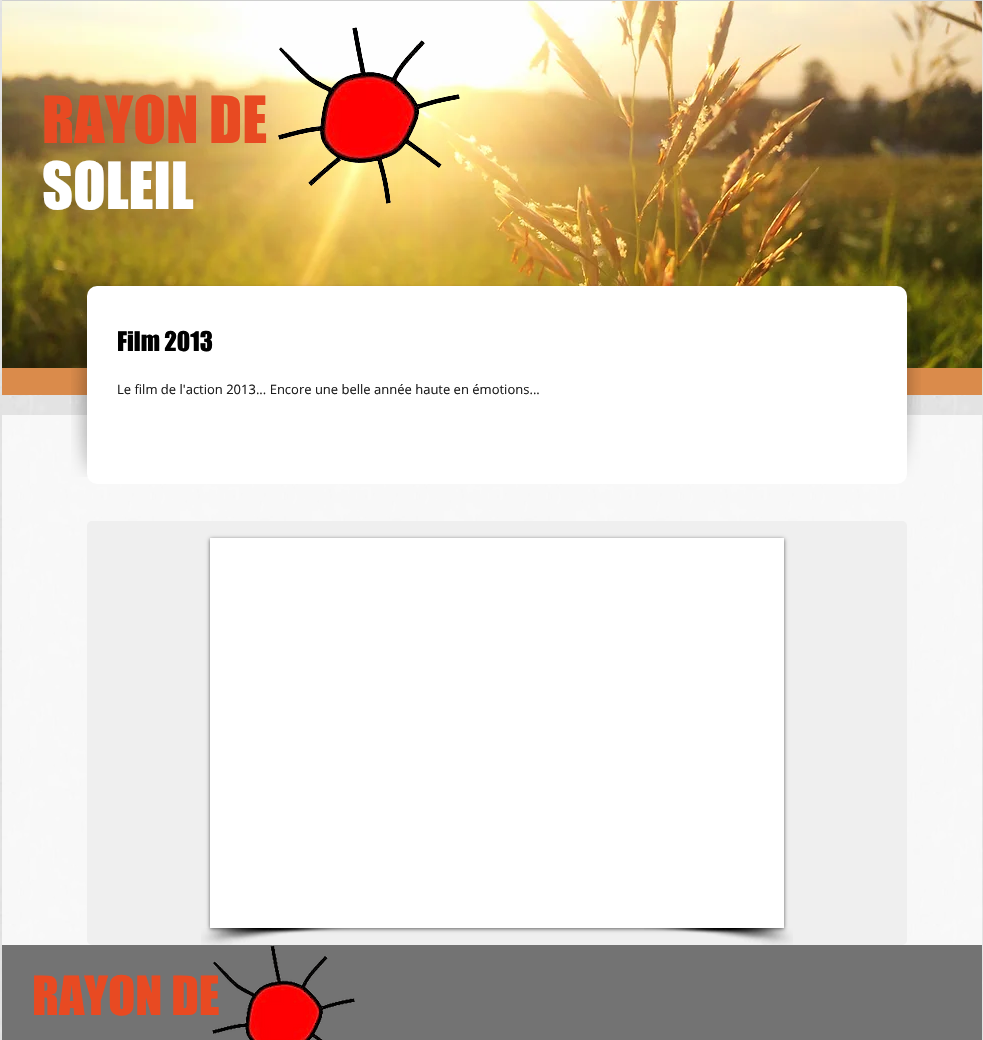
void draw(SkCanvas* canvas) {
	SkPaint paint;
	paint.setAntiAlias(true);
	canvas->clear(0xffffffff);
	canvas->drawImageRect(SkImages::DeferredFromEncodedData(SkData::MakeFromFileName("img1.png")), SkRect::MakeXYWH(0, 0, 983, 1040), SkSamplingOptions());
	paint.setColor(0xffcfcfcf);
	canvas->drawRect(SkRect::MakeXYWH(2, 0, 980, 1), paint);
	canvas->drawImageRect(SkImages::DeferredFromEncodedData(SkData::MakeFromFileName("img2.png")), SkRect::MakeXYWH(2, 1, 980, 367), SkSamplingOptions());
	SkFont f1(fontMgr->matchFamilyStyle("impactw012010", SkFontStyle::Normal()), 60);
	f1.setSubpixel(true);
	paint.setColor(0xffe84a22);
	canvas->drawString("RAYON DE", 42, 143, f1, paint);
	paint.setColor(0xffffffff);
	canvas->drawString("SOLEIL", 42, 209, f1, paint);
	canvas->drawImageRect(SkImages::DeferredFromEncodedData(SkData::MakeFromFileName("img3.png")), SkRect::MakeXYWH(278, 27, 182, 177), SkSamplingOptions());
	paint.setColor(0xffda8b4b);
	canvas->drawRect(SkRect::MakeXYWH(2, 368, 980, 27), paint);
	paint.setColor(0xbfffffff);
	canvas->drawRect(SkRect::MakeXYWH(2, 415, 980, 530), paint);
	canvas->drawImageRect(SkImages::DeferredFromEncodedData(SkData::MakeFromFileName("img4.png")), SkRect::MakeXYWH(71, 284, 850, 193), SkSamplingOptions());
	paint.setColor(0xffffffff);
	canvas->drawRoundRect(SkRect::MakeXYWH(87, 286, 820, 198), 10, 10, paint);
	SkFont f2(fontMgr->matchFamilyStyle("impactw012010", SkFontStyle::Normal()), 25);
	f2.setSubpixel(true);
	paint.setColor(0xff000000);
	canvas->drawString("Film 2013", 117, 351, f2, paint);
	SkFont f3(fontMgr->matchFamilyStyle("Open Sans", SkFontStyle::Normal()), 13);
	f3.setSubpixel(true);
	paint.setColor(0xff1c1c1c);
	canvas->drawString("Le film de l'action 2013... Encore une belle année haute en émotions...", 117, 394, f3, paint);
	paint.setColor(0xffefefef);
	canvas->drawRoundRect(SkRect::MakeXYWH(87, 521, 820, 424), 5, 5, paint);
	paint.setColor(0x99000000);
	paint.setMaskFilter(SkMaskFilter::MakeBlur(kNormal_SkBlurStyle, 2));
	canvas->drawRect(SkRect::MakeXYWH(210, 539, 574, 390), paint);
	paint.setMaskFilter(nullptr);
	paint.setColor(0xffffffff);
	canvas->drawRect(SkRect::MakeXYWH(210, 538, 574, 390), paint);
	canvas->drawImageRect(SkImages::DeferredFromEncodedData(SkData::MakeFromFileName("img5.png")), SkRect::MakeXYWH(201, 928, 149, 17), SkSamplingOptions());
	canvas->drawImageRect(SkImages::DeferredFromEncodedData(SkData::MakeFromFileName("img6.png")), SkRect::MakeXYWH(644, 928, 149, 17), SkSamplingOptions());
	paint.setColor(0xff737373);
	canvas->drawRect(SkRect::MakeXYWH(2, 945, 980, 95), paint);
	SkFont f4(fontMgr->matchFamilyStyle("impactw012010", SkFontStyle::Normal()), 50);
	f4.setSubpixel(true);
	paint.setColor(0xffe84a22);
	canvas->drawString("RAYON DE", 32, 1015, f4, paint);
	canvas->drawImageRect(SkImages::DeferredFromEncodedData(SkData::MakeFromFileName("img7.png")), SkRect::MakeXYWH(212, 945, 143, 95), SkSamplingOptions());
}
